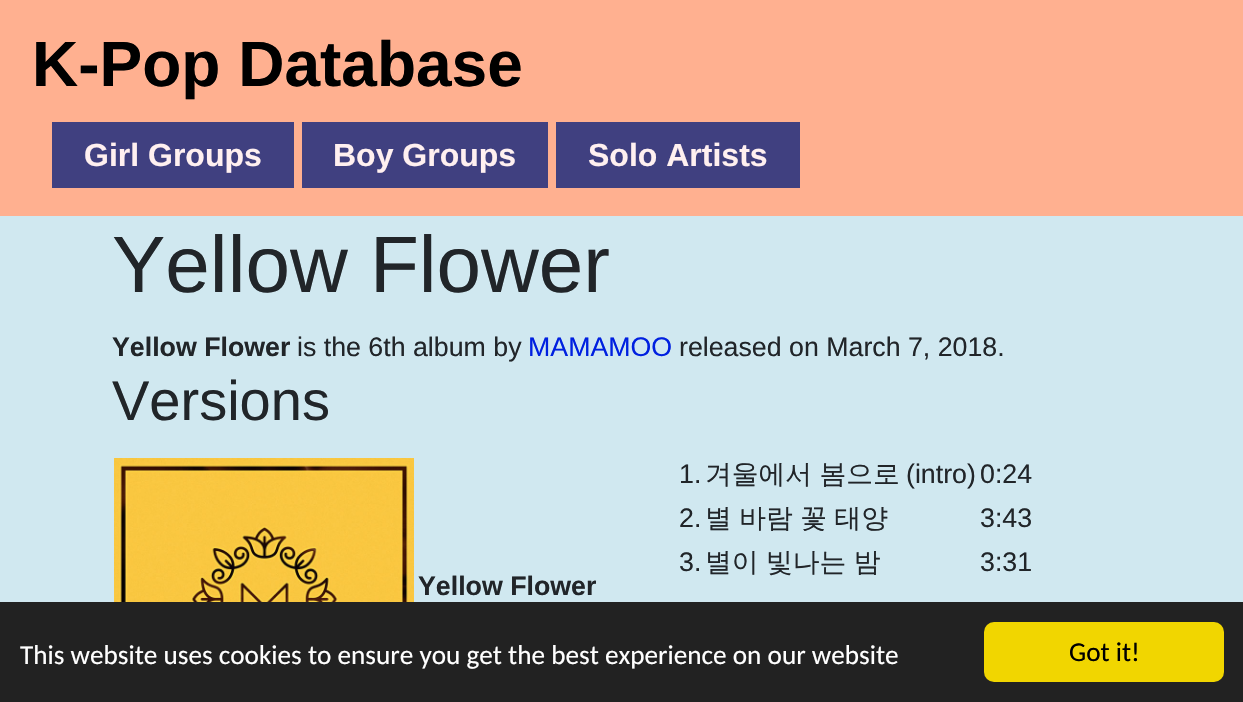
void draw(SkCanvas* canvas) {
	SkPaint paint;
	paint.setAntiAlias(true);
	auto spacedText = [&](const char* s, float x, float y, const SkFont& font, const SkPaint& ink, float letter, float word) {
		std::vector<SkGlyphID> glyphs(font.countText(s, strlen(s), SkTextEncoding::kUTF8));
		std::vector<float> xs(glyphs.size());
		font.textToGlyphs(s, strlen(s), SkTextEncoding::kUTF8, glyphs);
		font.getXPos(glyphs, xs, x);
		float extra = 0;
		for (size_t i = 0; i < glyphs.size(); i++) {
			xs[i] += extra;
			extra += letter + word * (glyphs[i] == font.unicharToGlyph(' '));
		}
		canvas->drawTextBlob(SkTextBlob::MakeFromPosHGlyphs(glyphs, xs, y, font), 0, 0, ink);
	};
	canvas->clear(0xffd0e8f0);
	paint.setColor(0xffffb090);
	canvas->drawRect(SkRect::MakeXYWH(0, 0, 1243, 216), paint);
	SkFont f1(fontMgr->matchFamilyStyle("Liberation Sans", SkFontStyle::Bold()), 64);
	f1.setSubpixel(true);
	paint.setColor(0xff000000);
	canvas->drawString("K-Pop Database", 32, 86, f1, paint);
	paint.setColor(0xff404080);
	canvas->drawRect(SkRect::MakeXYWH(52, 122, 242, 66), paint);
	SkFont f2(fontMgr->matchFamilyStyle("Liberation Sans", SkFontStyle::Bold()), 32);
	f2.setSubpixel(true);
	paint.setColor(0xfffff0f0);
	canvas->drawString("Girl Groups", 84, 166, f2, paint);
	paint.setColor(0xff404080);
	canvas->drawRect(SkRect::MakeXYWH(302, 122, 246, 66), paint);
	paint.setColor(0xfffff0f0);
	canvas->drawString("Boy Groups", 333, 166, f2, paint);
	paint.setColor(0xff404080);
	canvas->drawRect(SkRect::MakeXYWH(556, 122, 244, 66), paint);
	paint.setColor(0xfffff0f0);
	canvas->drawString("Solo Artists", 588, 166, f2, paint);
	SkFont f3(fontMgr->matchFamilyStyle("Liberation Sans", SkFontStyle::Normal()), 80);
	f3.setSubpixel(true);
	paint.setColor(0xff212529);
	canvas->drawString("Yellow Flower", 112, 292, f3, paint);
	SkFont f4(fontMgr->matchFamilyStyle("Liberation Sans", SkFontStyle::Bold()), 26.75);
	f4.setSubpixel(true);
	canvas->drawString("Yellow Flower", 112, 356, f4, paint);
	SkFont f5(fontMgr->matchFamilyStyle("Liberation Sans", SkFontStyle::Normal()), 26.75);
	f5.setSubpixel(true);
	canvas->drawString("is the 6th album by", 297, 356, f5, paint);
	paint.setColor(0xff0020e0);
	canvas->drawString("MAMAMOO", 528, 356, f5, paint);
	paint.setColor(0xff212529);
	canvas->drawString("released on March 7, 2018.", 679, 356, f5, paint);
	SkFont f6(fontMgr->matchFamilyStyle("Liberation Sans", SkFontStyle::Normal()), 56);
	f6.setSubpixel(true);
	canvas->drawString("Versions", 112, 420, f6, paint);
	canvas->drawImageRect(SkImages::DeferredFromEncodedData(SkData::MakeFromFileName("img1.png")), SkRect::MakeXYWH(114, 458, 300, 144), SkSamplingOptions());
	canvas->drawString("1.", 679, 483, f5, paint);
	SkFont f7(fontMgr->matchFamilyStyle("WenQuanYi Zen Hei", SkFontStyle(500, SkFontStyle::kNormal_Width, SkFontStyle::kUpright_Slant)), 26.75);
	f7.setSubpixel(true);
	spacedText("겨울에서 봄으로", 705, 483, f7, paint, 0, -0.5);
	canvas->drawString("(intro)", 906, 483, f5, paint);
	canvas->drawString("0:24", 980, 483, f5, paint);
	canvas->drawString("2.", 679, 527, f5, paint);
	spacedText("별 바람 꽃 태양", 705, 527, f7, paint, 0, -0.5);
	canvas->drawString("3:43", 980, 527, f5, paint);
	canvas->drawString("3.", 679, 571, f5, paint);
	spacedText("별이 빛나는 밤", 705, 571, f7, paint, 0, -0.5);
	canvas->drawString("3:31", 980, 571, f5, paint);
	canvas->drawString("Yellow Flower", 418, 595, f4, paint);
	paint.setColor(0xff222222);
	canvas->drawRect(SkRect::MakeXYWH(0, 602, 1243, 100), paint);
	SkFont f8(fontMgr->matchFamilyStyle("Carlito", SkFontStyle::Normal()), 27.2);
	f8.setSubpixel(true);
	paint.setColor(0xffffffff);
	canvas->drawString("This website uses cookies to ensure you get the best experience on our website", 20, 664, f8, paint);
	paint.setColor(0xfff1d600);
	canvas->drawRoundRect(SkRect::MakeXYWH(984, 622, 240, 60), 10, 10, paint);
	paint.setColor(0xff000000);
	canvas->drawString("Got it!", 1069, 661, f8, paint);
}
